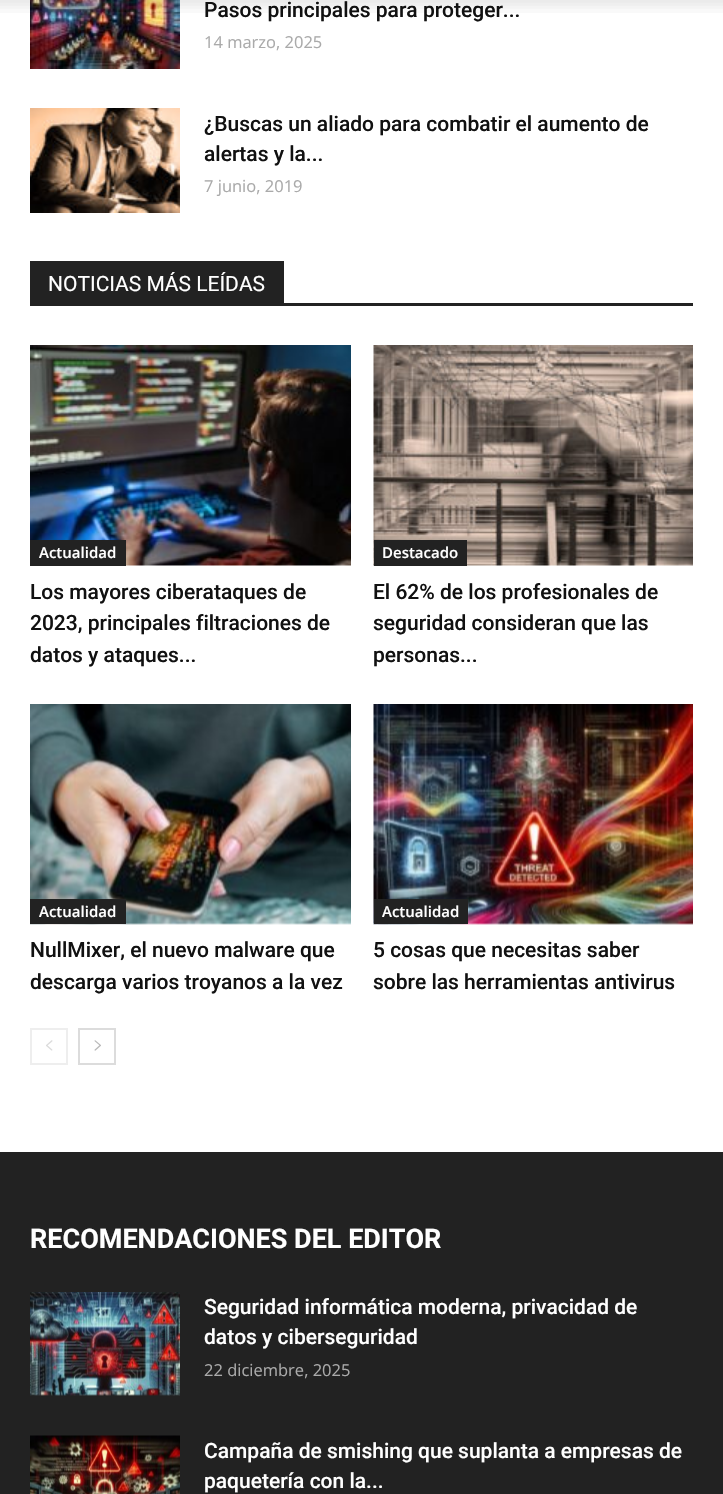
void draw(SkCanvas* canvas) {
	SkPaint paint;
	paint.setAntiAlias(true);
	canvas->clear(0xffffffff);
	canvas->drawImageRect(SkImages::DeferredFromEncodedData(SkData::MakeFromFileName("img2.png")), SkRect::MakeXYWH(30, 0, 150, 69), SkSamplingOptions());
	SkFont f1(fontMgr->matchFamilyStyle("Roboto", SkFontStyle(500, SkFontStyle::kNormal_Width, SkFontStyle::kUpright_Slant)), 21);
	f1.setSubpixel(true);
	paint.setColor(0xff111111);
	canvas->drawString("Pasos principales para proteger...", 204, 17, f1, paint);
	canvas->drawImageRect(SkImages::DeferredFromEncodedData(SkData::MakeFromFileName("img1.png")), SkRect::MakeXYWH(0, 0, 723, 13), SkSamplingOptions());
	SkFont f2(fontMgr->matchFamilyStyle("Open Sans", SkFontStyle::Normal()), 16.5);
	f2.setSubpixel(true);
	paint.setColor(0xffaaaaaa);
	canvas->drawString("14 marzo, 2025", 204, 48, f2, paint);
	canvas->drawImageRect(SkImages::DeferredFromEncodedData(SkData::MakeFromFileName("img3.png")), SkRect::MakeXYWH(30, 108, 150, 105), SkSamplingOptions());
	paint.setColor(0xff111111);
	canvas->drawString("¿Buscas un aliado para combatir el aumento de", 204, 131, f1, paint);
	canvas->drawString("alertas y la...", 204, 161, f1, paint);
	paint.setColor(0xffaaaaaa);
	canvas->drawString("7 junio, 2019", 204, 192, f2, paint);
	paint.setColor(0xff222222);
	canvas->drawRect(SkRect::MakeXYWH(30, 303, 663, 3), paint);
	canvas->drawRect(SkRect::MakeXYWH(30, 261, 254, 42), paint);
	SkFont f3(fontMgr->matchFamilyStyle("Roboto", SkFontStyle::Normal()), 21);
	f3.setSubpixel(true);
	paint.setColor(0xffffffff);
	canvas->drawString("NOTICIAS MÁS LEÍDAS", 48, 291, f3, paint);
	canvas->drawImageRect(SkImages::DeferredFromEncodedData(SkData::MakeFromFileName("img4.png")), SkRect::MakeXYWH(30, 345, 321, 221), SkSamplingOptions());
	paint.setColor(0xff222222);
	canvas->drawRect(SkRect::MakeXYWH(30, 540, 96, 26), paint);
	SkFont f4(fontMgr->matchFamilyStyle("Open Sans", SkFontStyle(600, SkFontStyle::kNormal_Width, SkFontStyle::kUpright_Slant)), 15);
	f4.setSubpixel(true);
	paint.setColor(0xffffffff);
	canvas->drawString("Actualidad", 39, 558, f4, paint);
	paint.setColor(0xff111111);
	canvas->drawString("Los mayores ciberataques de", 30, 599, f1, paint);
	canvas->drawString("2023, principales filtraciones de", 30, 630, f1, paint);
	canvas->drawString("datos y ataques...", 30, 662, f1, paint);
	canvas->drawImageRect(SkImages::DeferredFromEncodedData(SkData::MakeFromFileName("img5.png")), SkRect::MakeXYWH(373, 345, 320, 221), SkSamplingOptions());
	paint.setColor(0xff222222);
	canvas->drawRect(SkRect::MakeXYWH(374, 540, 93, 26), paint);
	paint.setColor(0xffffffff);
	canvas->drawString("Destacado", 382, 558, f4, paint);
	paint.setColor(0xff111111);
	canvas->drawString("El 62% de los profesionales de", 373, 599, f1, paint);
	canvas->drawString("seguridad consideran que las", 373, 630, f1, paint);
	canvas->drawString("personas...", 373, 662, f1, paint);
	canvas->drawImageRect(SkImages::DeferredFromEncodedData(SkData::MakeFromFileName("img6.png")), SkRect::MakeXYWH(30, 704, 321, 221), SkSamplingOptions());
	paint.setColor(0xff222222);
	canvas->drawRect(SkRect::MakeXYWH(30, 899, 96, 25), paint);
	paint.setColor(0xffffffff);
	canvas->drawString("Actualidad", 39, 917, f4, paint);
	paint.setColor(0xff111111);
	canvas->drawString("NullMixer, el nuevo malware que", 30, 957, f1, paint);
	canvas->drawString("descarga varios troyanos a la vez", 30, 989, f1, paint);
	canvas->drawImageRect(SkImages::DeferredFromEncodedData(SkData::MakeFromFileName("img7.png")), SkRect::MakeXYWH(373, 704, 320, 221), SkSamplingOptions());
	paint.setColor(0xff222222);
	canvas->drawRect(SkRect::MakeXYWH(374, 899, 94, 25), paint);
	paint.setColor(0xffffffff);
	canvas->drawString("Actualidad", 382, 917, f4, paint);
	paint.setColor(0xff111111);
	canvas->drawString("5 cosas que necesitas saber", 373, 957, f1, paint);
	canvas->drawString("sobre las herramientas antivirus", 373, 989, f1, paint);
	paint.setStroke(true);
	paint.setStrokeWidth(2);
	paint.setColor(0xffeeeeee);
	canvas->drawRect(SkRect::MakeXYWH(31, 1029, 36, 35), paint);
	canvas->drawImageRect(SkImages::DeferredFromEncodedData(SkData::MakeFromFileName("img8.png")), SkRect::MakeXYWH(46, 1040, 7, 11), SkSamplingOptions());
	paint.setColor(0xffdcdcdc);
	canvas->drawRect(SkRect::MakeXYWH(79, 1029, 36, 35), paint);
	canvas->drawImageRect(SkImages::DeferredFromEncodedData(SkData::MakeFromFileName("img9.png")), SkRect::MakeXYWH(94, 1040, 7, 11), SkSamplingOptions());
	paint.setStroke(false);
	paint.setColor(0xff222222);
	canvas->drawRect(SkRect::MakeXYWH(0, 1152, 723, 342), paint);
	SkFont f5(fontMgr->matchFamilyStyle("Roboto", SkFontStyle::Bold()), 27);
	f5.setSubpixel(true);
	paint.setColor(0xffffffff);
	canvas->drawString("RECOMENDACIONES DEL EDITOR", 30, 1248, f5, paint);
	canvas->drawImageRect(SkImages::DeferredFromEncodedData(SkData::MakeFromFileName("img10.png")), SkRect::MakeXYWH(30, 1292, 150, 104), SkSamplingOptions());
	canvas->drawString("Seguridad informática moderna, privacidad de", 204, 1314, f1, paint);
	canvas->drawString("datos y ciberseguridad", 204, 1344, f1, paint);
	paint.setColor(0xffaaaaaa);
	canvas->drawString("22 diciembre, 2025", 204, 1376, f2, paint);
	canvas->drawImageRect(SkImages::DeferredFromEncodedData(SkData::MakeFromFileName("img11.png")), SkRect::MakeXYWH(30, 1435, 150, 59), SkSamplingOptions());
	paint.setColor(0xffffffff);
	canvas->drawString("Campaña de smishing que suplanta a empresas de", 204, 1458, f1, paint);
	canvas->drawString("paquetería con la...", 204, 1488, f1, paint);
}
